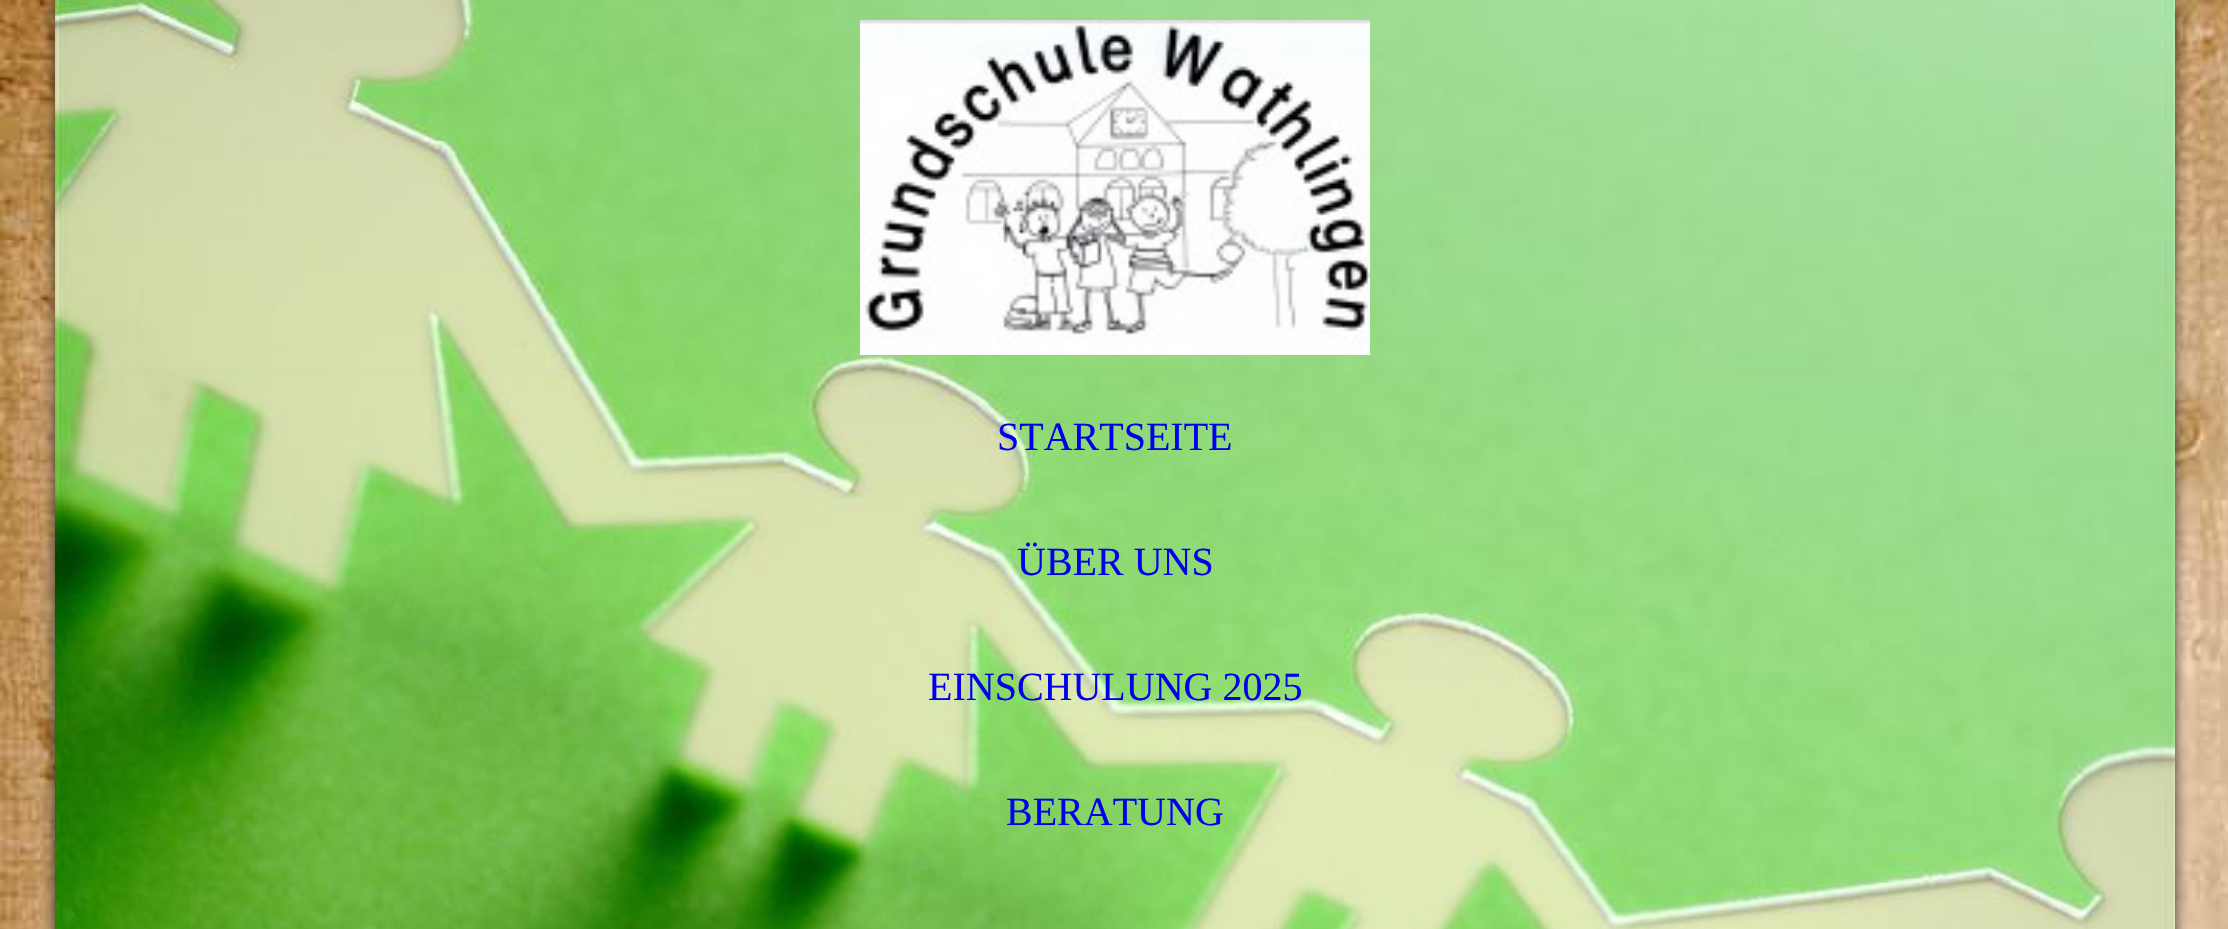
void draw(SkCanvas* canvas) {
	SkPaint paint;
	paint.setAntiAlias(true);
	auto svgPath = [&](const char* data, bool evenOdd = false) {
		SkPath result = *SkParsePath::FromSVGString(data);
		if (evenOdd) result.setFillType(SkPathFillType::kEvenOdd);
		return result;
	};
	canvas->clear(0xffffffff);
	canvas->drawImageRect(SkImages::DeferredFromEncodedData(SkData::MakeFromFileName("img1.png")), SkRect::MakeXYWH(0, 0, 2228, 929), SkSamplingOptions());
	paint.setColor(0xb3141414);
	paint.setMaskFilter(SkMaskFilter::MakeBlur(kNormal_SkBlurStyle, 6));
	canvas->drawRect(SkRect::MakeXYWH(55, 0, 2120, 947), paint);
	paint.setMaskFilter(nullptr);
	canvas->drawImageRect(SkImages::DeferredFromEncodedData(SkData::MakeFromFileName("img2.png")), SkRect::MakeXYWH(55, 0, 2120, 929), SkSamplingOptions());
	canvas->drawImageRect(SkImages::DeferredFromEncodedData(SkData::MakeFromFileName("img3.png")), SkRect::MakeXYWH(860, 20, 510, 335), SkSamplingOptions());
	canvas->save();
	canvas->clipPath(svgPath("M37 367H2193V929H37ZM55 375H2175V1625H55Z", true), true);
	paint.setColor(0xff444444);
	paint.setMaskFilter(SkMaskFilter::MakeBlur(kNormal_SkBlurStyle, 9));
	canvas->drawRect(SkRect::MakeXYWH(65, 395, 2100, 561), paint);
	paint.setMaskFilter(nullptr);
	canvas->restore();
	SkFont f1(fontMgr->matchFamilyStyle("Liberation Serif", SkFontStyle::Normal()), 40);
	f1.setSubpixel(true);
	paint.setColor(0xff0000ee);
	canvas->drawString("STARTSEITE", 997, 450, f1, paint);
	canvas->drawString("ÜBER UNS", 1017, 575, f1, paint);
	canvas->drawString("EINSCHULUNG 2025", 928, 700, f1, paint);
	canvas->drawString("BERATUNG", 1006, 825, f1, paint);
}
